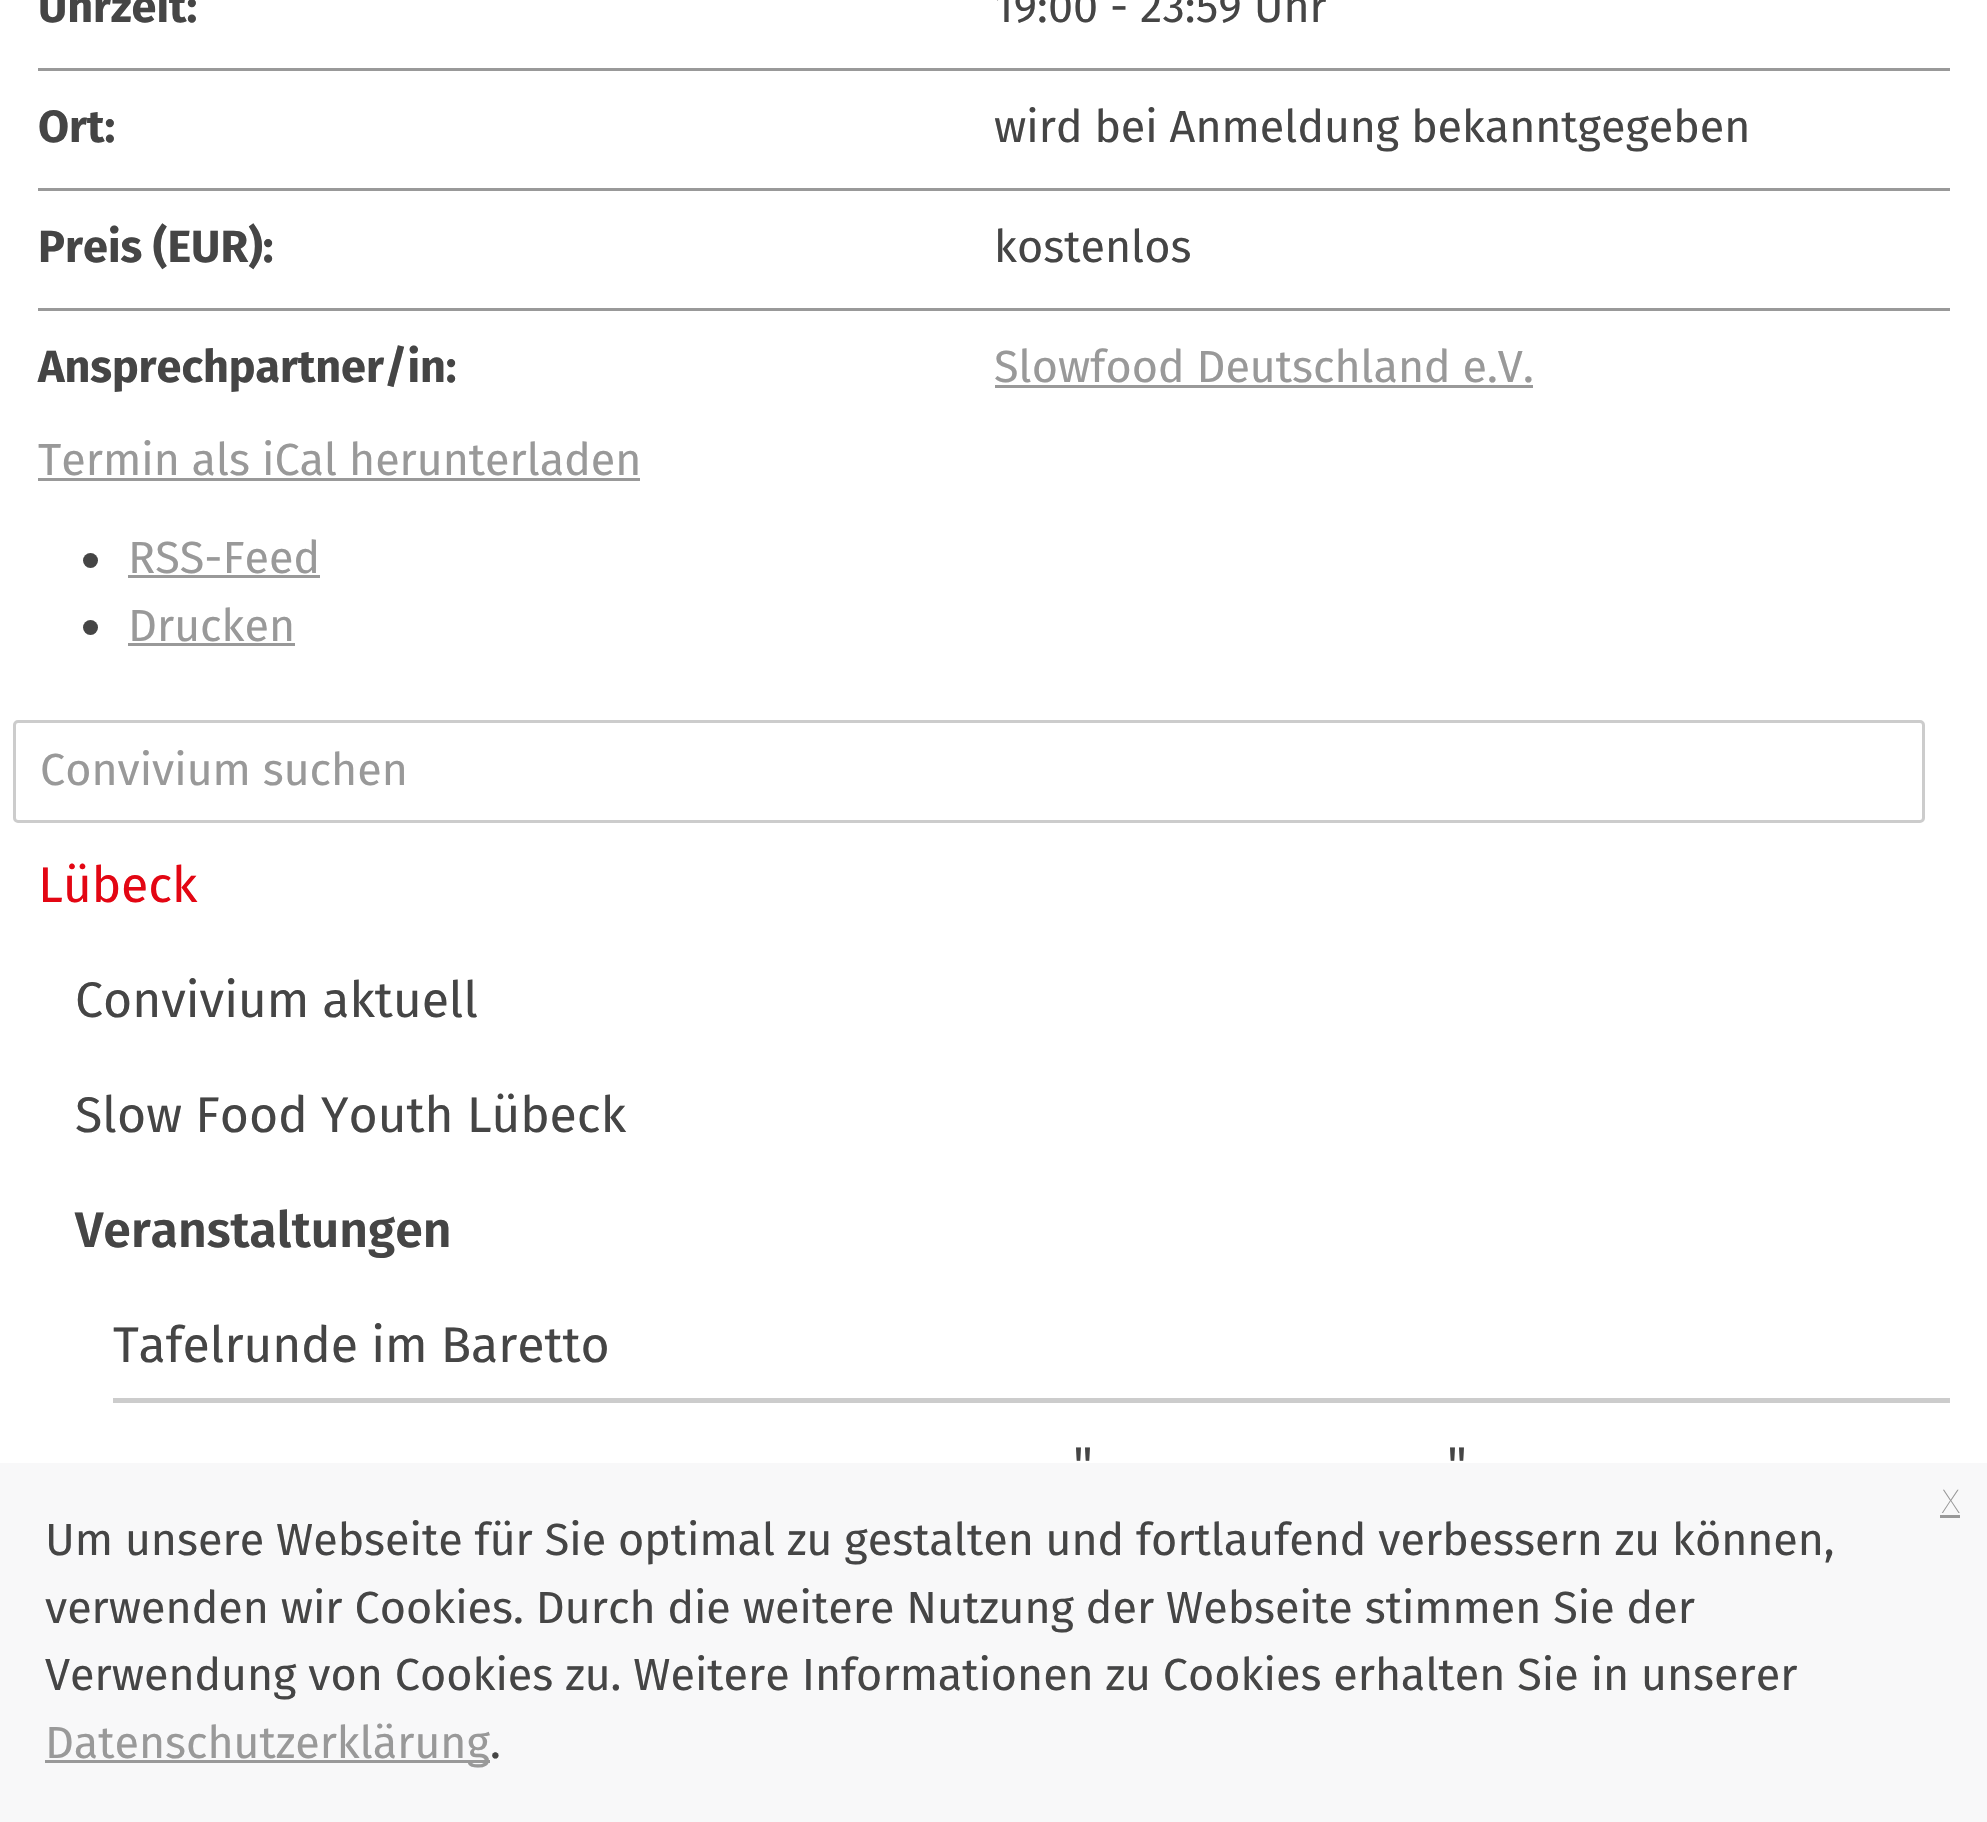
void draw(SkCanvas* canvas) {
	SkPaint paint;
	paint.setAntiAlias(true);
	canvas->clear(0xffffffff);
	paint.setColor(0xff999999);
	canvas->drawRect(SkRect::MakeXYWH(38, 68, 1912, 3), paint);
	SkFont f1(fontMgr->matchFamilyStyle("Fira Sans", SkFontStyle::Bold()), 45);
	f1.setSubpixel(true);
	paint.setColor(0xff454545);
	canvas->drawString("Uhrzeit:", 38, 22, f1, paint);
	SkFont f2(fontMgr->matchFamilyStyle("Fira Sans", SkFontStyle::Normal()), 45);
	f2.setSubpixel(true);
	canvas->drawString("19:00 - 23:59 Uhr", 994, 22, f2, paint);
	paint.setColor(0xff999999);
	canvas->drawRect(SkRect::MakeXYWH(38, 188, 1912, 3), paint);
	paint.setColor(0xff454545);
	canvas->drawString("Ort:", 38, 142, f1, paint);
	canvas->drawString("wird bei Anmeldung bekanntgegeben", 994, 142, f2, paint);
	paint.setColor(0xff999999);
	canvas->drawRect(SkRect::MakeXYWH(38, 308, 1912, 3), paint);
	paint.setColor(0xff454545);
	canvas->drawString("Preis (EUR):", 38, 262, f1, paint);
	canvas->drawString("kostenlos", 994, 262, f2, paint);
	canvas->drawString("Ansprechpartner/in:", 38, 382, f1, paint);
	paint.setColor(0xff999999);
	canvas->drawString("Slowfood Deutschland e.V.", 994, 382, f2, paint);
	canvas->drawRect(SkRect::MakeXYWH(995, 385, 538, 3), paint);
	canvas->drawString("Termin als iCal herunterladen", 38, 475, f2, paint);
	canvas->drawRect(SkRect::MakeXYWH(38, 478, 602, 3), paint);
	paint.setColor(0xff454545);
	canvas->drawCircle(90.5, 560.5, 7.5, paint);
	paint.setColor(0xff999999);
	canvas->drawString("RSS-Feed", 128, 573, f2, paint);
	canvas->drawRect(SkRect::MakeXYWH(128, 575, 192, 3), paint);
	paint.setColor(0xff454545);
	canvas->drawCircle(90.5, 627.5, 7.5, paint);
	paint.setColor(0xff999999);
	canvas->drawString("Drucken", 128, 641, f2, paint);
	canvas->drawRect(SkRect::MakeXYWH(128, 643, 167, 3), paint);
	paint.setStroke(true);
	paint.setStrokeWidth(3);
	paint.setColor(0xffcccccc);
	canvas->drawRoundRect(SkRect::MakeXYWH(14.5, 721.5, 1909, 100), 3.5, 3.5, paint);
	paint.setStroke(false);
	paint.setColor(0xff999999);
	canvas->drawString("Convivium suchen", 40, 785, f2, paint);
	SkFont f3(fontMgr->matchFamilyStyle("Fira Sans", SkFontStyle::Normal()), 50);
	f3.setSubpixel(true);
	paint.setColor(0xffe30613);
	canvas->drawString("Lübeck", 38, 902, f3, paint);
	paint.setColor(0xff454545);
	canvas->drawString("Convivium aktuell", 75, 1017, f3, paint);
	canvas->drawString("Slow Food Youth Lübeck", 75, 1132, f3, paint);
	SkFont f4(fontMgr->matchFamilyStyle("Fira Sans", SkFontStyle(600, SkFontStyle::kNormal_Width, SkFontStyle::kUpright_Slant)), 50);
	f4.setSubpixel(true);
	canvas->drawString("Veranstaltungen", 75, 1247, f4, paint);
	paint.setColor(0xffcccccc);
	canvas->drawRect(SkRect::MakeXYWH(113, 1398, 1837, 5), paint);
	paint.setColor(0xff454545);
	canvas->drawString("Tafelrunde im Baretto", 113, 1362, f3, paint);
	canvas->drawString("\"", 1073, 1482, f3, paint);
	canvas->drawString("\"", 1447, 1482, f3, paint);
	paint.setColor(0xfff8f8f9);
	canvas->drawRect(SkRect::MakeXYWH(0, 1463, 1987, 359), paint);
	SkFont f5(fontMgr->matchFamilyStyle("Fira Sans", SkFontStyle(100, SkFontStyle::kNormal_Width, SkFontStyle::kUpright_Slant)), 45);
	f5.setSubpixel(true);
	paint.setColor(0xff999999);
	canvas->drawString("x", 1941, 1513, f5, paint);
	canvas->drawRect(SkRect::MakeXYWH(1940, 1515, 20, 3), paint);
	paint.setColor(0xff454545);
	canvas->drawString("Um unsere Webseite für Sie optimal zu gestalten und fortlaufend verbessern zu können,", 45, 1555, f2, paint);
	canvas->drawString("verwenden wir Cookies. Durch die weitere Nutzung der Webseite stimmen Sie der", 45, 1623, f2, paint);
	canvas->drawString("Verwendung von Cookies zu. Weitere Informationen zu Cookies erhalten Sie in unserer", 45, 1690, f2, paint);
	paint.setColor(0xff999999);
	canvas->drawRect(SkRect::MakeXYWH(45, 1760, 445, 3), paint);
	canvas->drawString("Datenschutzerklärung", 45, 1758, f2, paint);
	paint.setColor(0xff454545);
	canvas->drawString(".", 490, 1758, f2, paint);
}
